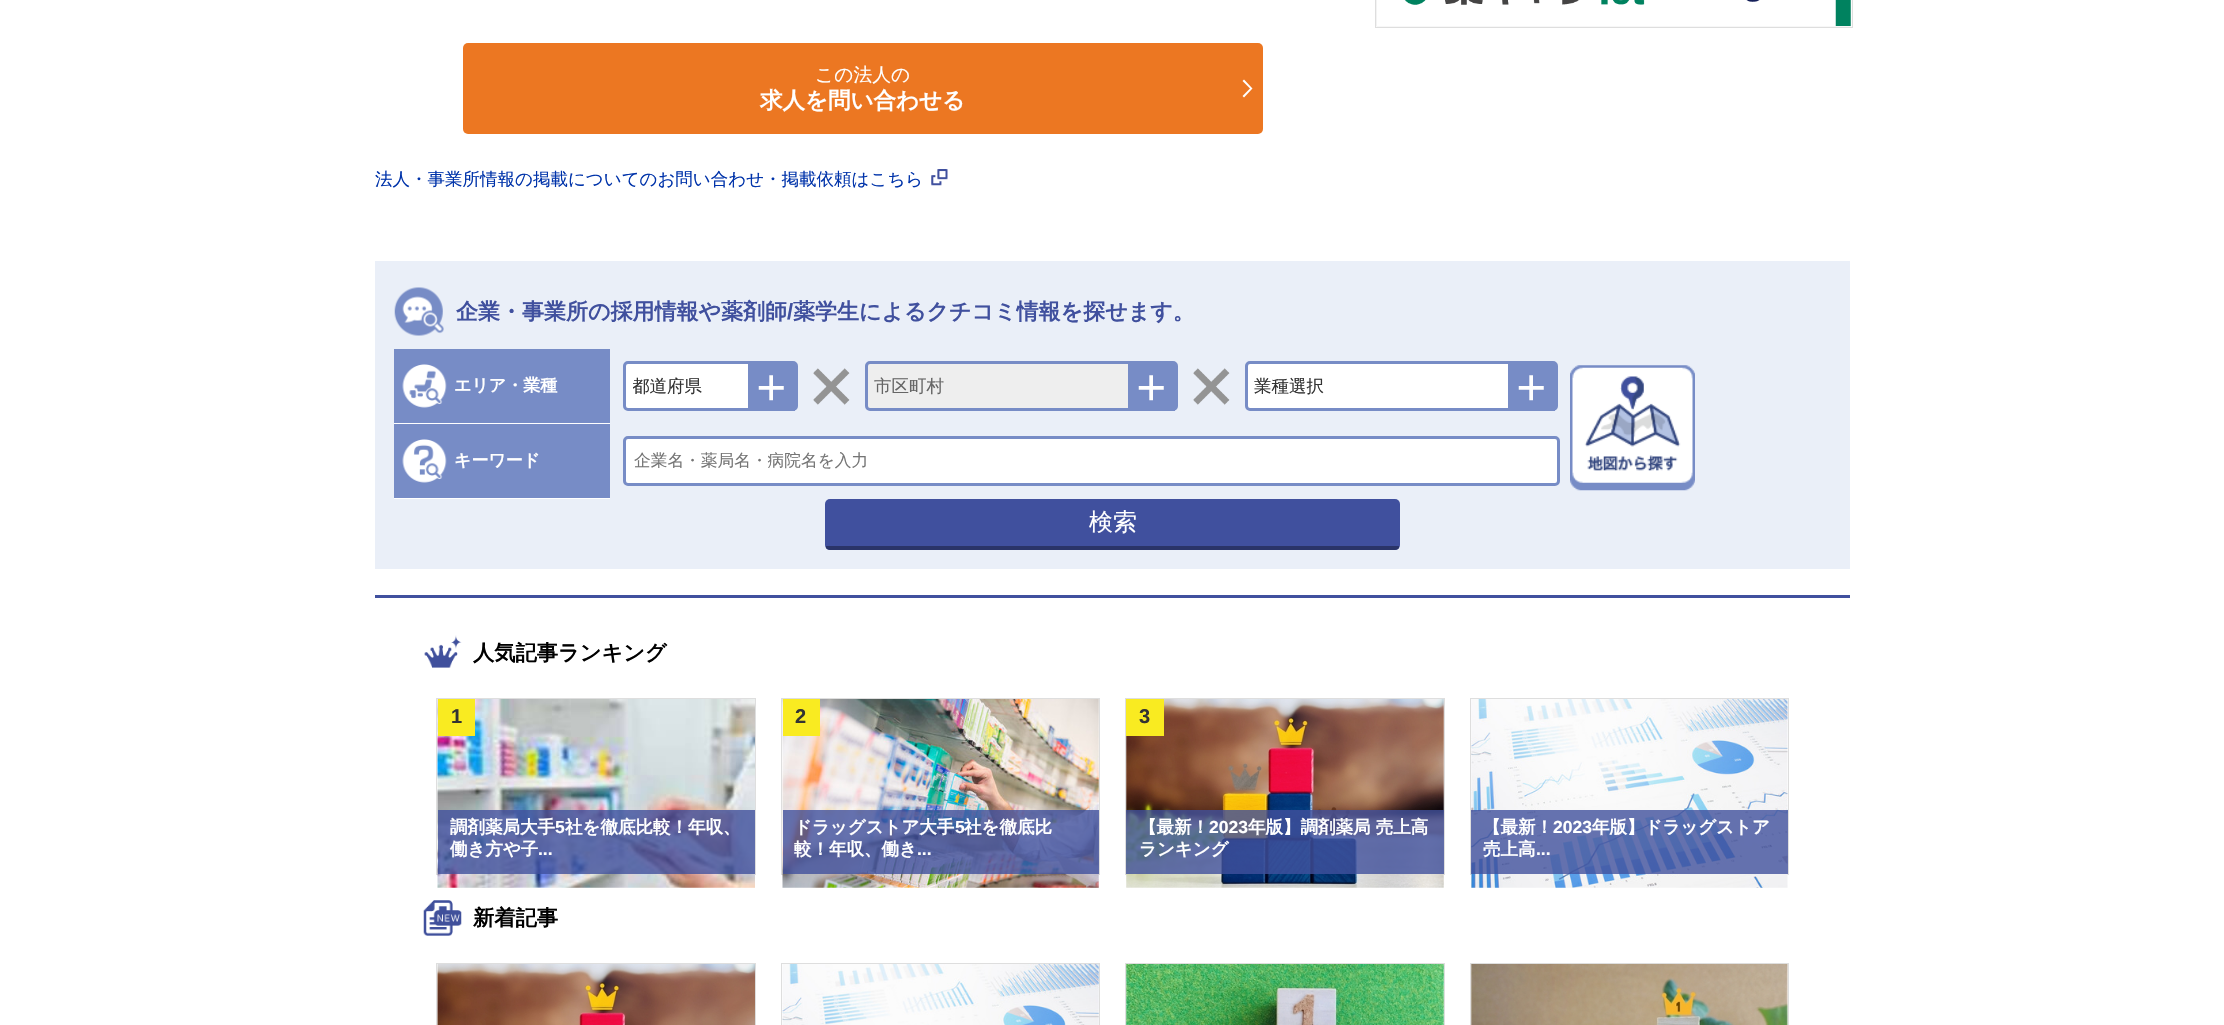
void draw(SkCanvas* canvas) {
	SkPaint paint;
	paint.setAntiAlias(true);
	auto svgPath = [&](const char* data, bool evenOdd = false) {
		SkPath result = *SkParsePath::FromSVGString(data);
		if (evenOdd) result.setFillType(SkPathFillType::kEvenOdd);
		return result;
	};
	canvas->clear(0xffffffff);
	paint.setStroke(true);
	paint.setStrokeWidth(1);
	paint.setColor(0xffdedede);
	canvas->drawRect(SkRect::MakeXYWH(1375.5, -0.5, 477, 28), paint);
	canvas->drawImageRect(SkImages::DeferredFromEncodedData(SkData::MakeFromFileName("img1.png")), SkRect::MakeXYWH(1376, 0, 476, 27), SkSamplingOptions());
	paint.setStroke(false);
	paint.setColor(0xffec7722);
	canvas->drawRoundRect(SkRect::MakeXYWH(463, 43, 800, 91), 5, 5, paint);
	SkFont f1(fontMgr->matchFamilyStyle("WenQuanYi Zen Hei", SkFontStyle(500, SkFontStyle::kNormal_Width, SkFontStyle::kUpright_Slant)), 18.75);
	f1.setSubpixel(true);
	paint.setColor(0xffffffff);
	canvas->drawString("この法人の", 815, 81, f1, paint);
	canvas->drawPath(svgPath("M1244 79.5L1252.5 88.5L1244 97.5L1235 88.5Z"), paint);
	paint.setColor(0xffec7722);
	canvas->drawPath(svgPath("M1241 79.5L1250 88.5L1241 97.5L1232.5 88.5Z"), paint);
	SkFont f2(fontMgr->matchFamilyStyle("WenQuanYi Zen Hei", SkFontStyle::Bold()), 22.5);
	f2.setSubpixel(true);
	paint.setColor(0xffffffff);
	canvas->drawString("求人を問い合わせる", 760, 108, f2, paint);
	SkFont f3(fontMgr->matchFamilyStyle("WenQuanYi Zen Hei", SkFontStyle(500, SkFontStyle::kNormal_Width, SkFontStyle::kUpright_Slant)), 17.5);
	f3.setSubpixel(true);
	paint.setColor(0xff0033aa);
	canvas->drawString("法人・事業所情報の掲載についてのお問い合わせ・掲載依頼はこちら", 375, 185, f3, paint);
	canvas->drawImageRect(SkImages::DeferredFromEncodedData(SkData::MakeFromFileName("img2.png")), SkRect::MakeXYWH(931, 169, 17, 17), SkSamplingOptions());
	paint.setColor(0xffeaeff8);
	canvas->drawRect(SkRect::MakeXYWH(375, 261, 1475, 308), paint);
	canvas->drawImageRect(SkImages::DeferredFromEncodedData(SkData::MakeFromFileName("img3.png")), SkRect::MakeXYWH(394, 287, 50, 49), SkSamplingOptions());
	SkFont f4(fontMgr->matchFamilyStyle("WenQuanYi Zen Hei", SkFontStyle::Bold()), 22);
	f4.setSubpixel(true);
	paint.setColor(0xff40509e);
	canvas->drawString("企業・事業所の採用情報や薬剤師", 456, 319, f4, paint);
	SkFont f5(fontMgr->matchFamilyStyle("Liberation Sans", SkFontStyle::Bold()), 22);
	f5.setSubpixel(true);
	canvas->drawString("/", 787, 319, f5, paint);
	canvas->drawString("薬学生によるクチコミ情報を探せます。", 793, 319, f4, paint);
	paint.setColor(0xff778cc6);
	canvas->drawRect(SkRect::MakeXYWH(394, 349, 216, 74), paint);
	canvas->drawImageRect(SkImages::DeferredFromEncodedData(SkData::MakeFromFileName("img4.png")), SkRect::MakeXYWH(402, 364, 45, 44), SkSamplingOptions());
	paint.setColor(0xffffffff);
	canvas->drawRect(SkRect::MakeXYWH(394, 423, 216, 1), paint);
	SkFont f6(fontMgr->matchFamilyStyle("WenQuanYi Zen Hei", SkFontStyle::Bold()), 17);
	f6.setSubpixel(true);
	canvas->drawString("エリア・業種", 454, 391, f6, paint);
	canvas->drawRoundRect(SkRect::MakeXYWH(624.5, 362.5, 172, 47), 3.5, 3.5, paint);
	paint.setStroke(true);
	paint.setStrokeWidth(3);
	paint.setColor(0xff778cc6);
	canvas->drawRoundRect(SkRect::MakeXYWH(624.5, 362.5, 172, 47), 3.5, 3.5, paint);
	canvas->save();
	canvas->clipRect(SkRect::MakeXYWH(633, 375, 112, 23));
	paint.setStroke(false);
	paint.setColor(0xff333333);
	canvas->drawString("都道府県", 632, 392, f3, paint);
	canvas->restore();
	paint.setColor(0xff778cc6);
	canvas->drawRect(SkRect::MakeXYWH(748, 364, 47, 47), paint);
	canvas->drawImageRect(SkImages::DeferredFromEncodedData(SkData::MakeFromFileName("img5.png")), SkRect::MakeXYWH(758, 375, 26, 26), SkSamplingOptions());
	canvas->drawImageRect(SkImages::DeferredFromEncodedData(SkData::MakeFromFileName("img6.png")), SkRect::MakeXYWH(813, 368, 37, 37), SkSamplingOptions());
	paint.setColor(0xffeeeeee);
	canvas->drawRoundRect(SkRect::MakeXYWH(866.5, 362.5, 310, 47), 3.5, 3.5, paint);
	paint.setStroke(true);
	paint.setColor(0xff778cc6);
	canvas->drawRoundRect(SkRect::MakeXYWH(866.5, 362.5, 310, 47), 3.5, 3.5, paint);
	paint.setStroke(false);
	paint.setColor(0xff666666);
	canvas->drawString("市区町村", 874, 392, f3, paint);
	paint.setColor(0xff778cc6);
	canvas->drawRect(SkRect::MakeXYWH(1128, 364, 47, 47), paint);
	canvas->drawImageRect(SkImages::DeferredFromEncodedData(SkData::MakeFromFileName("img5.png")), SkRect::MakeXYWH(1138, 375, 26, 26), SkSamplingOptions());
	canvas->drawImageRect(SkImages::DeferredFromEncodedData(SkData::MakeFromFileName("img7.png")), SkRect::MakeXYWH(1193, 368, 37, 37), SkSamplingOptions());
	paint.setColor(0xffffffff);
	canvas->drawRoundRect(SkRect::MakeXYWH(1246.5, 362.5, 310, 47), 3.5, 3.5, paint);
	paint.setStroke(true);
	paint.setColor(0xff778cc6);
	canvas->drawRoundRect(SkRect::MakeXYWH(1246.5, 362.5, 310, 47), 3.5, 3.5, paint);
	paint.setStroke(false);
	paint.setColor(0xff333333);
	canvas->drawString("業種選択", 1254, 392, f3, paint);
	paint.setColor(0xff778cc6);
	canvas->drawRect(SkRect::MakeXYWH(1508, 364, 47, 47), paint);
	canvas->drawImageRect(SkImages::DeferredFromEncodedData(SkData::MakeFromFileName("img5.png")), SkRect::MakeXYWH(1518, 375, 26, 26), SkSamplingOptions());
	canvas->drawRect(SkRect::MakeXYWH(394, 424, 216, 74), paint);
	canvas->drawImageRect(SkImages::DeferredFromEncodedData(SkData::MakeFromFileName("img8.png")), SkRect::MakeXYWH(402, 439, 45, 44), SkSamplingOptions());
	paint.setColor(0xffffffff);
	canvas->drawRect(SkRect::MakeXYWH(394, 498, 216, 1), paint);
	canvas->drawString("キーワード", 454, 466, f6, paint);
	canvas->drawRoundRect(SkRect::MakeXYWH(624.5, 437.5, 934, 47), 3.5, 3.5, paint);
	paint.setStroke(true);
	paint.setColor(0xff778cc6);
	canvas->drawRoundRect(SkRect::MakeXYWH(624.5, 437.5, 934, 47), 3.5, 3.5, paint);
	SkFont f7(fontMgr->matchFamilyStyle("WenQuanYi Zen Hei", SkFontStyle(500, SkFontStyle::kNormal_Width, SkFontStyle::kUpright_Slant)), 16.7);
	f7.setSubpixel(true);
	paint.setStroke(false);
	paint.setColor(0xff757575);
	canvas->drawString("企業名・薬局名・病院名を入力", 634, 466, f7, paint);
	paint.setColor(0xff40509e);
	canvas->drawRoundRect(SkRect::MakeXYWH(825, 499, 575, 51), 5, 5, paint);
	paint.setColor(0xff2a3468);
	canvas->drawPath(svgPath("M830 550H1395C1397 550 1398 549 1399 548V546H1395H826V548C827 549 828 550 830 550Z"), paint);
	SkFont f8(fontMgr->matchFamilyStyle("WenQuanYi Zen Hei", SkFontStyle(500, SkFontStyle::kNormal_Width, SkFontStyle::kUpright_Slant)), 24);
	f8.setSubpixel(true);
	paint.setColor(0xffffffff);
	canvas->drawString("検索", 1089, 530, f8, paint);
	canvas->drawImageRect(SkImages::DeferredFromEncodedData(SkData::MakeFromFileName("img9.png")), SkRect::MakeXYWH(1570, 365, 125, 126), SkSamplingOptions());
	paint.setColor(0xff40509e);
	canvas->drawRect(SkRect::MakeXYWH(375, 595, 1475, 3), paint);
	canvas->drawImageRect(SkImages::DeferredFromEncodedData(SkData::MakeFromFileName("img10.png")), SkRect::MakeXYWH(424, 635, 38, 33), SkSamplingOptions());
	SkFont f9(fontMgr->matchFamilyStyle("WenQuanYi Zen Hei", SkFontStyle::Bold()), 21.25);
	f9.setSubpixel(true);
	paint.setColor(0xff000000);
	canvas->drawString("人気記事ランキング", 473, 660, f9, paint);
	paint.setStroke(true);
	paint.setStrokeWidth(1);
	paint.setColor(0xffdedede);
	canvas->drawRect(SkRect::MakeXYWH(436.5, 698.5, 319, 176), paint);
	canvas->drawImageRect(SkImages::DeferredFromEncodedData(SkData::MakeFromFileName("img11.png")), SkRect::MakeXYWH(437, 699, 318, 189), SkSamplingOptions());
	paint.setStroke(false);
	paint.setColor(0xfff9eb21);
	canvas->drawRect(SkRect::MakeXYWH(438, 699, 37, 37), paint);
	SkFont f10(fontMgr->matchFamilyStyle("Liberation Sans", SkFontStyle::Bold()), 20);
	f10.setSubpixel(true);
	paint.setColor(0xff333333);
	canvas->drawString("1", 451, 723, f10, paint);
	paint.setColor(0xcc40509c);
	canvas->drawRect(SkRect::MakeXYWH(438, 810, 317, 64), paint);
	SkFont f11(fontMgr->matchFamilyStyle("WenQuanYi Zen Hei", SkFontStyle::Bold()), 17.5);
	f11.setSubpixel(true);
	paint.setColor(0xffffffff);
	canvas->drawString("調剤薬局大手", 450, 833, f11, paint);
	SkFont f12(fontMgr->matchFamilyStyle("Liberation Sans", SkFontStyle::Bold()), 17.5);
	f12.setSubpixel(true);
	canvas->drawString("5", 555, 833, f12, paint);
	canvas->drawString("社を徹底比較！年収、", 565, 833, f11, paint);
	canvas->drawString("働き方や子", 450, 855, f11, paint);
	canvas->drawString("...", 538, 855, f12, paint);
	paint.setStroke(true);
	paint.setColor(0xffdedede);
	canvas->drawRect(SkRect::MakeXYWH(781.5, 698.5, 318, 176), paint);
	canvas->drawImageRect(SkImages::DeferredFromEncodedData(SkData::MakeFromFileName("img12.png")), SkRect::MakeXYWH(782, 699, 317, 189), SkSamplingOptions());
	paint.setStroke(false);
	paint.setColor(0xfff9eb21);
	canvas->drawRect(SkRect::MakeXYWH(783, 699, 37, 37), paint);
	paint.setColor(0xff333333);
	canvas->drawString("2", 795, 723, f10, paint);
	paint.setColor(0xcc40509c);
	canvas->drawRect(SkRect::MakeXYWH(783, 810, 316, 64), paint);
	paint.setColor(0xffffffff);
	canvas->drawString("ドラッグストア大手", 794, 833, f11, paint);
	canvas->drawString("5", 955, 833, f12, paint);
	canvas->drawString("社を徹底比", 964, 833, f11, paint);
	canvas->drawString("較！年収、働き", 794, 855, f11, paint);
	canvas->drawString("...", 917, 855, f12, paint);
	paint.setStroke(true);
	paint.setColor(0xffdedede);
	canvas->drawRect(SkRect::MakeXYWH(1125.5, 698.5, 319, 176), paint);
	canvas->drawImageRect(SkImages::DeferredFromEncodedData(SkData::MakeFromFileName("img13.png")), SkRect::MakeXYWH(1126, 699, 318, 189), SkSamplingOptions());
	paint.setStroke(false);
	paint.setColor(0xfff9eb21);
	canvas->drawRect(SkRect::MakeXYWH(1126, 699, 38, 37), paint);
	paint.setColor(0xff333333);
	canvas->drawString("3", 1139, 723, f10, paint);
	paint.setColor(0xcc40509c);
	canvas->drawRect(SkRect::MakeXYWH(1126, 810, 318, 64), paint);
	paint.setColor(0xffffffff);
	canvas->drawString("【最新！", 1139, 833, f11, paint);
	canvas->drawString("2023", 1209, 833, f12, paint);
	canvas->drawString("年版】調剤薬局 売上高", 1248, 833, f11, paint);
	canvas->drawString("ランキング", 1139, 855, f11, paint);
	paint.setStroke(true);
	paint.setColor(0xffdedede);
	canvas->drawRect(SkRect::MakeXYWH(1470.5, 698.5, 318, 176), paint);
	canvas->drawImageRect(SkImages::DeferredFromEncodedData(SkData::MakeFromFileName("img14.png")), SkRect::MakeXYWH(1471, 699, 317, 189), SkSamplingOptions());
	paint.setStroke(false);
	paint.setColor(0xcc40509c);
	canvas->drawRect(SkRect::MakeXYWH(1471, 810, 317, 64), paint);
	paint.setColor(0xffffffff);
	canvas->drawString("【最新！", 1483, 833, f11, paint);
	canvas->drawString("2023", 1553, 833, f12, paint);
	canvas->drawString("年版】ドラッグストア", 1592, 833, f11, paint);
	canvas->drawString("売上高", 1483, 855, f11, paint);
	canvas->drawString("...", 1536, 855, f12, paint);
	canvas->drawImageRect(SkImages::DeferredFromEncodedData(SkData::MakeFromFileName("img15.png")), SkRect::MakeXYWH(423, 900, 39, 36), SkSamplingOptions());
	paint.setColor(0xff000000);
	canvas->drawString("新着記事", 473, 925, f9, paint);
	paint.setStroke(true);
	paint.setColor(0xffdedede);
	canvas->drawRect(SkRect::MakeXYWH(436.5, 963.5, 319, 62), paint);
	canvas->drawImageRect(SkImages::DeferredFromEncodedData(SkData::MakeFromFileName("img16.png")), SkRect::MakeXYWH(437, 964, 318, 61), SkSamplingOptions());
	canvas->drawRect(SkRect::MakeXYWH(781.5, 963.5, 318, 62), paint);
	canvas->drawImageRect(SkImages::DeferredFromEncodedData(SkData::MakeFromFileName("img17.png")), SkRect::MakeXYWH(782, 964, 317, 61), SkSamplingOptions());
	canvas->drawRect(SkRect::MakeXYWH(1125.5, 963.5, 319, 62), paint);
	canvas->drawImageRect(SkImages::DeferredFromEncodedData(SkData::MakeFromFileName("img18.png")), SkRect::MakeXYWH(1126, 964, 318, 61), SkSamplingOptions());
	canvas->drawRect(SkRect::MakeXYWH(1470.5, 963.5, 318, 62), paint);
	canvas->drawImageRect(SkImages::DeferredFromEncodedData(SkData::MakeFromFileName("img19.png")), SkRect::MakeXYWH(1471, 964, 317, 61), SkSamplingOptions());
}
